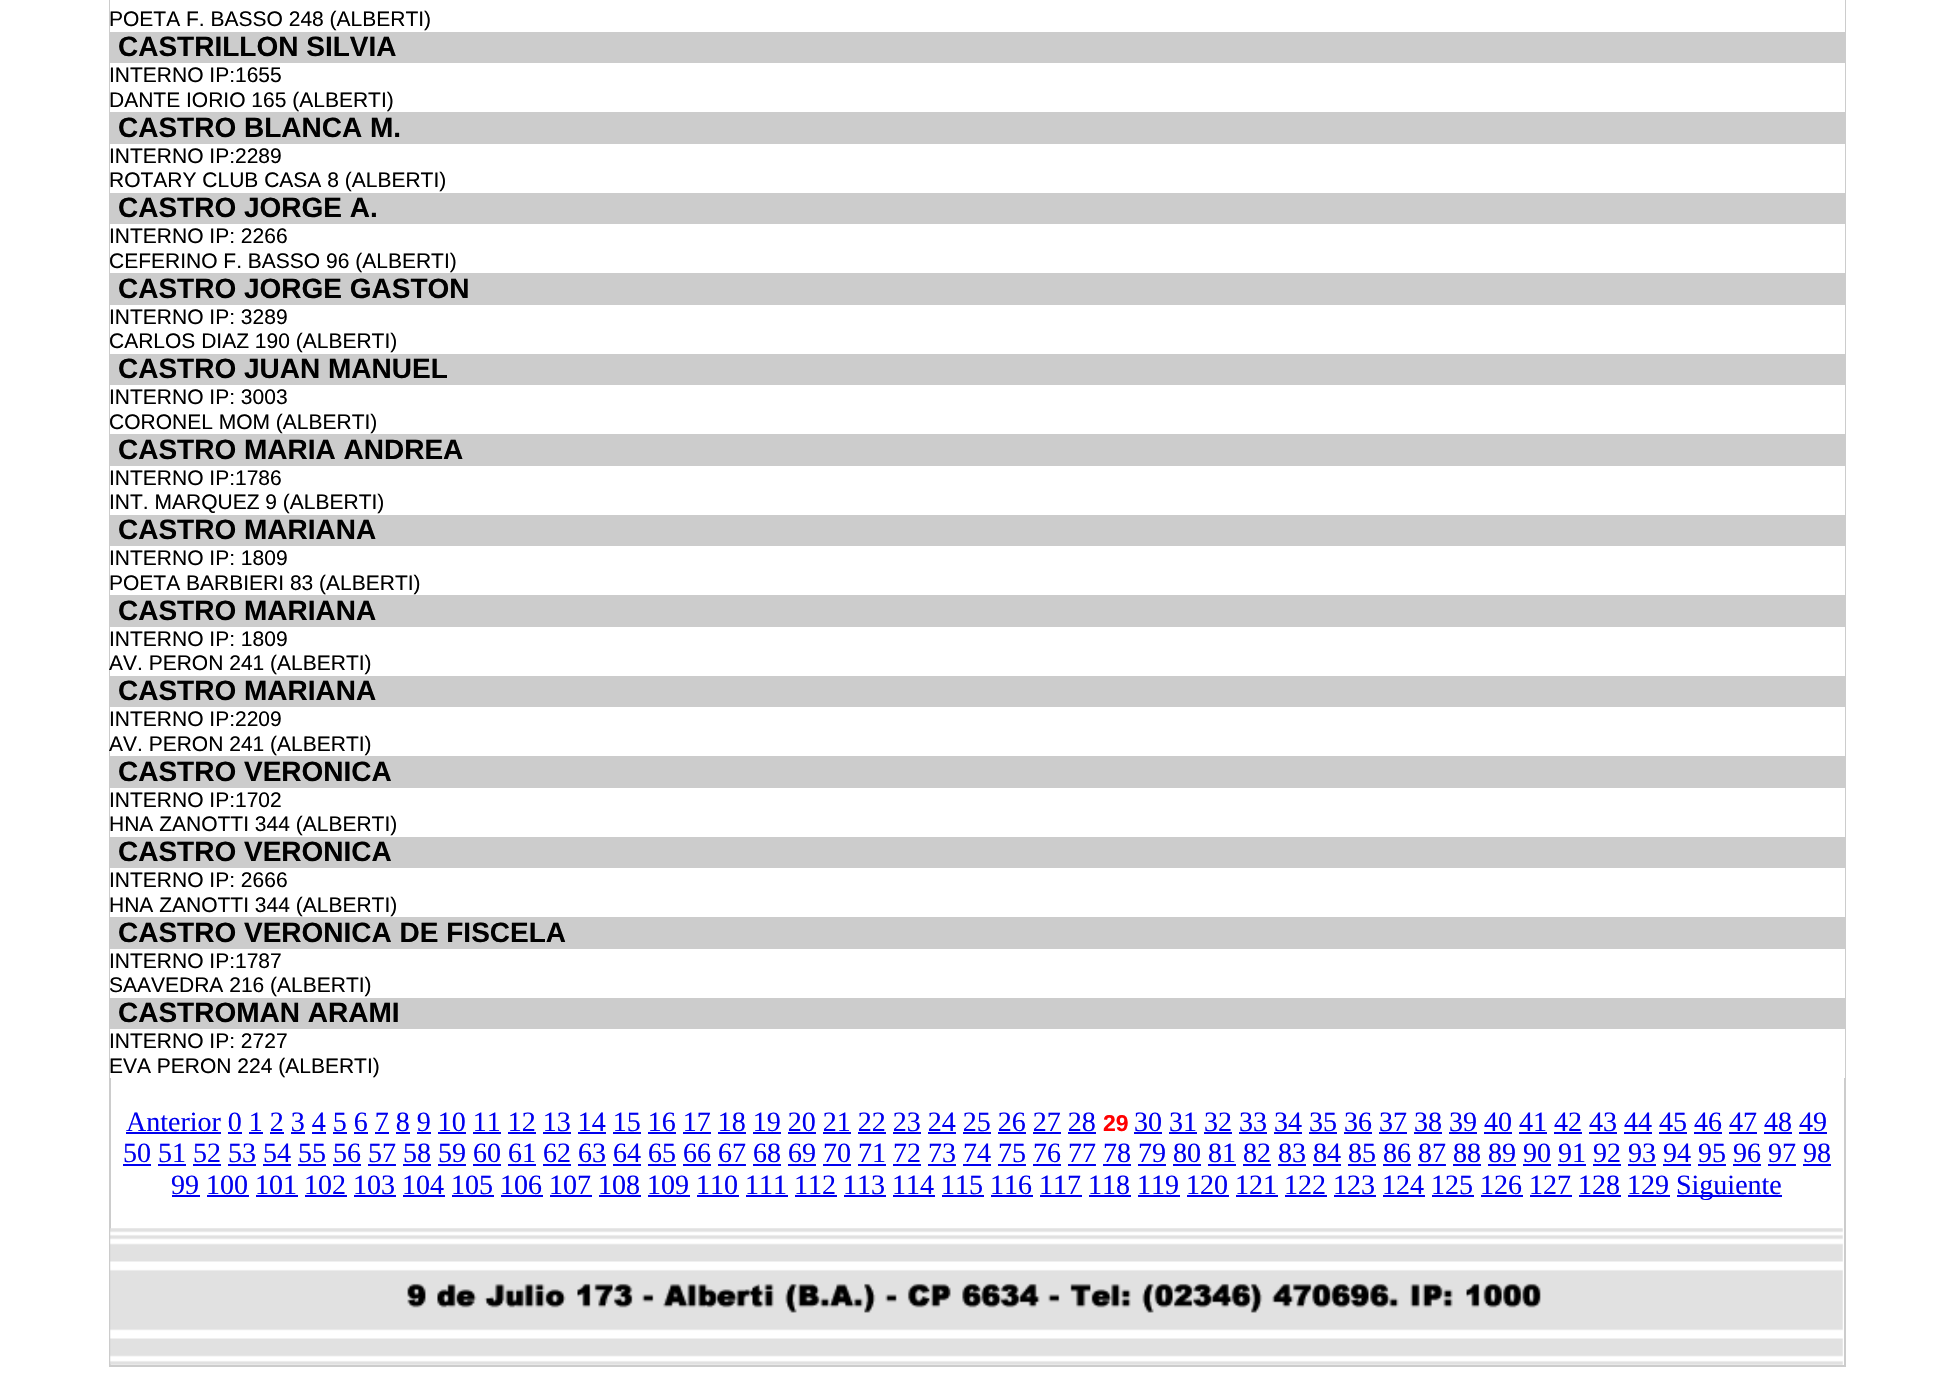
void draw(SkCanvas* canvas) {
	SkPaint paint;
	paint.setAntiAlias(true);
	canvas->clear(0xffffffff);
	paint.setStroke(true);
	paint.setStrokeWidth(2);
	paint.setColor(0xffcccccc);
	canvas->drawRect(SkRect::MakeXYWH(110, -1, 1735, 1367), paint);
	paint.setStroke(false);
	paint.setColor(0xffffffff);
	canvas->drawRect(SkRect::MakeXYWH(110, 0, 1735, 32), paint);
	SkFont f1(fontMgr->matchFamilyStyle("Liberation Sans", SkFontStyle::Normal()), 21);
	f1.setSubpixel(true);
	paint.setColor(0xff000000);
	canvas->drawString("POETA F. BASSO 248 (ALBERTI)", 109, 26, f1, paint);
	paint.setColor(0xffcccccc);
	canvas->drawRect(SkRect::MakeXYWH(111, 32, 1733, 31), paint);
	SkFont f2(fontMgr->matchFamilyStyle("Liberation Sans", SkFontStyle::Bold()), 28);
	f2.setSubpixel(true);
	paint.setColor(0xff000000);
	canvas->drawString("CASTRILLON SILVIA", 118, 56, f2, paint);
	paint.setColor(0xffffffff);
	canvas->drawRect(SkRect::MakeXYWH(110, 63, 1735, 49), paint);
	paint.setColor(0xff000000);
	canvas->drawString("INTERNO IP:1655", 109, 82, f1, paint);
	canvas->drawString("DANTE IORIO 165 (ALBERTI)", 109, 107, f1, paint);
	paint.setColor(0xffcccccc);
	canvas->drawRect(SkRect::MakeXYWH(111, 112, 1733, 32), paint);
	paint.setColor(0xff000000);
	canvas->drawString("CASTRO BLANCA M.", 118, 137, f2, paint);
	paint.setColor(0xffffffff);
	canvas->drawRect(SkRect::MakeXYWH(110, 144, 1735, 49), paint);
	paint.setColor(0xff000000);
	canvas->drawString("INTERNO IP:2289", 109, 163, f1, paint);
	canvas->drawString("ROTARY CLUB CASA 8 (ALBERTI)", 109, 187, f1, paint);
	paint.setColor(0xffcccccc);
	canvas->drawRect(SkRect::MakeXYWH(111, 193, 1733, 31), paint);
	paint.setColor(0xff000000);
	canvas->drawString("CASTRO JORGE A.", 118, 217, f2, paint);
	paint.setColor(0xffffffff);
	canvas->drawRect(SkRect::MakeXYWH(110, 224, 1735, 49), paint);
	paint.setColor(0xff000000);
	canvas->drawString("INTERNO IP: 2266", 109, 243, f1, paint);
	canvas->drawString("CEFERINO F. BASSO 96 (ALBERTI)", 109, 268, f1, paint);
	paint.setColor(0xffcccccc);
	canvas->drawRect(SkRect::MakeXYWH(111, 273, 1733, 32), paint);
	paint.setColor(0xff000000);
	canvas->drawString("CASTRO JORGE GASTON", 118, 298, f2, paint);
	paint.setColor(0xffffffff);
	canvas->drawRect(SkRect::MakeXYWH(110, 305, 1735, 49), paint);
	paint.setColor(0xff000000);
	canvas->drawString("INTERNO IP: 3289", 109, 324, f1, paint);
	canvas->drawString("CARLOS DIAZ 190 (ALBERTI)", 109, 348, f1, paint);
	paint.setColor(0xffcccccc);
	canvas->drawRect(SkRect::MakeXYWH(111, 354, 1733, 31), paint);
	paint.setColor(0xff000000);
	canvas->drawString("CASTRO JUAN MANUEL", 118, 378, f2, paint);
	paint.setColor(0xffffffff);
	canvas->drawRect(SkRect::MakeXYWH(110, 385, 1735, 49), paint);
	paint.setColor(0xff000000);
	canvas->drawString("INTERNO IP: 3003", 109, 404, f1, paint);
	canvas->drawString("CORONEL MOM (ALBERTI)", 109, 429, f1, paint);
	paint.setColor(0xffcccccc);
	canvas->drawRect(SkRect::MakeXYWH(111, 434, 1733, 32), paint);
	paint.setColor(0xff000000);
	canvas->drawString("CASTRO MARIA ANDREA", 118, 459, f2, paint);
	paint.setColor(0xffffffff);
	canvas->drawRect(SkRect::MakeXYWH(110, 466, 1735, 49), paint);
	paint.setColor(0xff000000);
	canvas->drawString("INTERNO IP:1786", 109, 485, f1, paint);
	canvas->drawString("INT. MARQUEZ 9 (ALBERTI)", 109, 509, f1, paint);
	paint.setColor(0xffcccccc);
	canvas->drawRect(SkRect::MakeXYWH(111, 515, 1733, 31), paint);
	paint.setColor(0xff000000);
	canvas->drawString("CASTRO MARIANA", 118, 539, f2, paint);
	paint.setColor(0xffffffff);
	canvas->drawRect(SkRect::MakeXYWH(110, 546, 1735, 49), paint);
	paint.setColor(0xff000000);
	canvas->drawString("INTERNO IP: 1809", 109, 565, f1, paint);
	canvas->drawString("POETA BARBIERI 83 (ALBERTI)", 109, 590, f1, paint);
	paint.setColor(0xffcccccc);
	canvas->drawRect(SkRect::MakeXYWH(111, 595, 1733, 32), paint);
	paint.setColor(0xff000000);
	canvas->drawString("CASTRO MARIANA", 118, 620, f2, paint);
	paint.setColor(0xffffffff);
	canvas->drawRect(SkRect::MakeXYWH(110, 627, 1735, 49), paint);
	paint.setColor(0xff000000);
	canvas->drawString("INTERNO IP: 1809", 109, 646, f1, paint);
	canvas->drawString("AV. PERON 241 (ALBERTI)", 109, 670, f1, paint);
	paint.setColor(0xffcccccc);
	canvas->drawRect(SkRect::MakeXYWH(111, 676, 1733, 31), paint);
	paint.setColor(0xff000000);
	canvas->drawString("CASTRO MARIANA", 118, 700, f2, paint);
	paint.setColor(0xffffffff);
	canvas->drawRect(SkRect::MakeXYWH(110, 707, 1735, 49), paint);
	paint.setColor(0xff000000);
	canvas->drawString("INTERNO IP:2209", 109, 726, f1, paint);
	canvas->drawString("AV. PERON 241 (ALBERTI)", 109, 751, f1, paint);
	paint.setColor(0xffcccccc);
	canvas->drawRect(SkRect::MakeXYWH(111, 756, 1733, 32), paint);
	paint.setColor(0xff000000);
	canvas->drawString("CASTRO VERONICA", 118, 781, f2, paint);
	paint.setColor(0xffffffff);
	canvas->drawRect(SkRect::MakeXYWH(110, 788, 1735, 49), paint);
	paint.setColor(0xff000000);
	canvas->drawString("INTERNO IP:1702", 109, 807, f1, paint);
	canvas->drawString("HNA ZANOTTI 344 (ALBERTI)", 109, 831, f1, paint);
	paint.setColor(0xffcccccc);
	canvas->drawRect(SkRect::MakeXYWH(111, 837, 1733, 31), paint);
	paint.setColor(0xff000000);
	canvas->drawString("CASTRO VERONICA", 118, 861, f2, paint);
	paint.setColor(0xffffffff);
	canvas->drawRect(SkRect::MakeXYWH(110, 868, 1735, 49), paint);
	paint.setColor(0xff000000);
	canvas->drawString("INTERNO IP: 2666", 109, 887, f1, paint);
	canvas->drawString("HNA ZANOTTI 344 (ALBERTI)", 109, 912, f1, paint);
	paint.setColor(0xffcccccc);
	canvas->drawRect(SkRect::MakeXYWH(111, 917, 1733, 32), paint);
	paint.setColor(0xff000000);
	canvas->drawString("CASTRO VERONICA DE FISCELA", 118, 942, f2, paint);
	paint.setColor(0xffffffff);
	canvas->drawRect(SkRect::MakeXYWH(110, 949, 1735, 49), paint);
	paint.setColor(0xff000000);
	canvas->drawString("INTERNO IP:1787", 109, 968, f1, paint);
	canvas->drawString("SAAVEDRA 216 (ALBERTI)", 109, 992, f1, paint);
	paint.setColor(0xffcccccc);
	canvas->drawRect(SkRect::MakeXYWH(111, 998, 1733, 31), paint);
	paint.setColor(0xff000000);
	canvas->drawString("CASTROMAN ARAMI", 118, 1022, f2, paint);
	paint.setColor(0xffffffff);
	canvas->drawRect(SkRect::MakeXYWH(110, 1029, 1735, 49), paint);
	paint.setColor(0xff000000);
	canvas->drawString("INTERNO IP: 2727", 109, 1048, f1, paint);
	canvas->drawString("EVA PERON 224 (ALBERTI)", 109, 1073, f1, paint);
	SkFont f3(fontMgr->matchFamilyStyle("Liberation Serif", SkFontStyle::Normal()), 28);
	f3.setSubpixel(true);
	paint.setColor(0xff0000ee);
	canvas->drawString("Anterior 0 1 2 3 4 5 6 7 8 9 10 11 12 13 14 15 16 17 18 19 20 21 22 23 24 25 26 27 28", 126, 1131, f3, paint);
	canvas->drawRect(SkRect::MakeXYWH(126, 1132, 95, 2), paint);
	SkFont f4(fontMgr->matchFamilyStyle("Liberation Sans", SkFontStyle::Bold()), 23);
	f4.setSubpixel(true);
	paint.setColor(0xffff0000);
	canvas->drawString("29", 1103, 1131, f4, paint);
	paint.setColor(0xff0000ee);
	canvas->drawString("30 31 32 33 34 35 36 37 38 39 40 41 42 43 44 45 46 47 48 49", 1134, 1131, f3, paint);
	canvas->drawRect(SkRect::MakeXYWH(1134, 1132, 28, 2), paint);
	canvas->drawRect(SkRect::MakeXYWH(228, 1132, 14, 2), paint);
	canvas->drawRect(SkRect::MakeXYWH(249, 1132, 14, 2), paint);
	canvas->drawRect(SkRect::MakeXYWH(270, 1132, 14, 2), paint);
	canvas->drawRect(SkRect::MakeXYWH(291, 1132, 14, 2), paint);
	canvas->drawRect(SkRect::MakeXYWH(312, 1132, 14, 2), paint);
	canvas->drawRect(SkRect::MakeXYWH(333, 1132, 14, 2), paint);
	canvas->drawRect(SkRect::MakeXYWH(354, 1132, 14, 2), paint);
	canvas->drawRect(SkRect::MakeXYWH(375, 1132, 14, 2), paint);
	canvas->drawRect(SkRect::MakeXYWH(396, 1132, 14, 2), paint);
	canvas->drawRect(SkRect::MakeXYWH(417, 1132, 14, 2), paint);
	canvas->drawRect(SkRect::MakeXYWH(438, 1132, 28, 2), paint);
	canvas->drawRect(SkRect::MakeXYWH(473, 1132, 28, 2), paint);
	canvas->drawRect(SkRect::MakeXYWH(508, 1132, 28, 2), paint);
	canvas->drawRect(SkRect::MakeXYWH(543, 1132, 28, 2), paint);
	canvas->drawRect(SkRect::MakeXYWH(578, 1132, 28, 2), paint);
	canvas->drawRect(SkRect::MakeXYWH(613, 1132, 28, 2), paint);
	canvas->drawRect(SkRect::MakeXYWH(648, 1132, 28, 2), paint);
	canvas->drawRect(SkRect::MakeXYWH(683, 1132, 28, 2), paint);
	canvas->drawRect(SkRect::MakeXYWH(718, 1132, 28, 2), paint);
	canvas->drawRect(SkRect::MakeXYWH(753, 1132, 28, 2), paint);
	canvas->drawRect(SkRect::MakeXYWH(788, 1132, 28, 2), paint);
	canvas->drawRect(SkRect::MakeXYWH(823, 1132, 28, 2), paint);
	canvas->drawRect(SkRect::MakeXYWH(858, 1132, 28, 2), paint);
	canvas->drawRect(SkRect::MakeXYWH(893, 1132, 28, 2), paint);
	canvas->drawRect(SkRect::MakeXYWH(928, 1132, 28, 2), paint);
	canvas->drawRect(SkRect::MakeXYWH(963, 1132, 28, 2), paint);
	canvas->drawRect(SkRect::MakeXYWH(998, 1132, 28, 2), paint);
	canvas->drawRect(SkRect::MakeXYWH(1033, 1132, 28, 2), paint);
	canvas->drawRect(SkRect::MakeXYWH(1068, 1132, 28, 2), paint);
	canvas->drawRect(SkRect::MakeXYWH(1169, 1132, 28, 2), paint);
	canvas->drawRect(SkRect::MakeXYWH(1204, 1132, 28, 2), paint);
	canvas->drawRect(SkRect::MakeXYWH(1239, 1132, 28, 2), paint);
	canvas->drawRect(SkRect::MakeXYWH(1274, 1132, 28, 2), paint);
	canvas->drawRect(SkRect::MakeXYWH(1309, 1132, 28, 2), paint);
	canvas->drawRect(SkRect::MakeXYWH(1344, 1132, 28, 2), paint);
	canvas->drawRect(SkRect::MakeXYWH(1379, 1132, 28, 2), paint);
	canvas->drawRect(SkRect::MakeXYWH(1414, 1132, 28, 2), paint);
	canvas->drawRect(SkRect::MakeXYWH(1449, 1132, 28, 2), paint);
	canvas->drawRect(SkRect::MakeXYWH(1484, 1132, 28, 2), paint);
	canvas->drawRect(SkRect::MakeXYWH(1519, 1132, 28, 2), paint);
	canvas->drawRect(SkRect::MakeXYWH(1554, 1132, 28, 2), paint);
	canvas->drawRect(SkRect::MakeXYWH(1589, 1132, 28, 2), paint);
	canvas->drawRect(SkRect::MakeXYWH(1624, 1132, 28, 2), paint);
	canvas->drawRect(SkRect::MakeXYWH(1659, 1132, 28, 2), paint);
	canvas->drawRect(SkRect::MakeXYWH(1694, 1132, 28, 2), paint);
	canvas->drawRect(SkRect::MakeXYWH(1729, 1132, 28, 2), paint);
	canvas->drawRect(SkRect::MakeXYWH(1764, 1132, 28, 2), paint);
	canvas->drawRect(SkRect::MakeXYWH(1799, 1132, 28, 2), paint);
	canvas->drawString("50 51 52 53 54 55 56 57 58 59 60 61 62 63 64 65 66 67 68 69 70 71 72 73 74 75 76 77 78 79 80 81 82 83 84 85 86 87 88 89 90 91 92 93 94 95 96 97 98", 123, 1162, f3, paint);
	canvas->drawRect(SkRect::MakeXYWH(123, 1164, 28, 2), paint);
	canvas->drawRect(SkRect::MakeXYWH(158, 1164, 28, 2), paint);
	canvas->drawRect(SkRect::MakeXYWH(193, 1164, 28, 2), paint);
	canvas->drawRect(SkRect::MakeXYWH(228, 1164, 28, 2), paint);
	canvas->drawRect(SkRect::MakeXYWH(263, 1164, 28, 2), paint);
	canvas->drawRect(SkRect::MakeXYWH(298, 1164, 28, 2), paint);
	canvas->drawRect(SkRect::MakeXYWH(333, 1164, 28, 2), paint);
	canvas->drawRect(SkRect::MakeXYWH(368, 1164, 28, 2), paint);
	canvas->drawRect(SkRect::MakeXYWH(403, 1164, 28, 2), paint);
	canvas->drawRect(SkRect::MakeXYWH(438, 1164, 28, 2), paint);
	canvas->drawRect(SkRect::MakeXYWH(473, 1164, 28, 2), paint);
	canvas->drawRect(SkRect::MakeXYWH(508, 1164, 28, 2), paint);
	canvas->drawRect(SkRect::MakeXYWH(543, 1164, 28, 2), paint);
	canvas->drawRect(SkRect::MakeXYWH(578, 1164, 28, 2), paint);
	canvas->drawRect(SkRect::MakeXYWH(613, 1164, 28, 2), paint);
	canvas->drawRect(SkRect::MakeXYWH(648, 1164, 28, 2), paint);
	canvas->drawRect(SkRect::MakeXYWH(683, 1164, 28, 2), paint);
	canvas->drawRect(SkRect::MakeXYWH(718, 1164, 28, 2), paint);
	canvas->drawRect(SkRect::MakeXYWH(753, 1164, 28, 2), paint);
	canvas->drawRect(SkRect::MakeXYWH(788, 1164, 28, 2), paint);
	canvas->drawRect(SkRect::MakeXYWH(823, 1164, 28, 2), paint);
	canvas->drawRect(SkRect::MakeXYWH(858, 1164, 28, 2), paint);
	canvas->drawRect(SkRect::MakeXYWH(893, 1164, 28, 2), paint);
	canvas->drawRect(SkRect::MakeXYWH(928, 1164, 28, 2), paint);
	canvas->drawRect(SkRect::MakeXYWH(963, 1164, 28, 2), paint);
	canvas->drawRect(SkRect::MakeXYWH(998, 1164, 28, 2), paint);
	canvas->drawRect(SkRect::MakeXYWH(1033, 1164, 28, 2), paint);
	canvas->drawRect(SkRect::MakeXYWH(1068, 1164, 28, 2), paint);
	canvas->drawRect(SkRect::MakeXYWH(1103, 1164, 28, 2), paint);
	canvas->drawRect(SkRect::MakeXYWH(1138, 1164, 28, 2), paint);
	canvas->drawRect(SkRect::MakeXYWH(1173, 1164, 28, 2), paint);
	canvas->drawRect(SkRect::MakeXYWH(1208, 1164, 28, 2), paint);
	canvas->drawRect(SkRect::MakeXYWH(1243, 1164, 28, 2), paint);
	canvas->drawRect(SkRect::MakeXYWH(1278, 1164, 28, 2), paint);
	canvas->drawRect(SkRect::MakeXYWH(1313, 1164, 28, 2), paint);
	canvas->drawRect(SkRect::MakeXYWH(1348, 1164, 28, 2), paint);
	canvas->drawRect(SkRect::MakeXYWH(1383, 1164, 28, 2), paint);
	canvas->drawRect(SkRect::MakeXYWH(1418, 1164, 28, 2), paint);
	canvas->drawRect(SkRect::MakeXYWH(1453, 1164, 28, 2), paint);
	canvas->drawRect(SkRect::MakeXYWH(1488, 1164, 28, 2), paint);
	canvas->drawRect(SkRect::MakeXYWH(1523, 1164, 28, 2), paint);
	canvas->drawRect(SkRect::MakeXYWH(1558, 1164, 28, 2), paint);
	canvas->drawRect(SkRect::MakeXYWH(1593, 1164, 28, 2), paint);
	canvas->drawRect(SkRect::MakeXYWH(1628, 1164, 28, 2), paint);
	canvas->drawRect(SkRect::MakeXYWH(1663, 1164, 28, 2), paint);
	canvas->drawRect(SkRect::MakeXYWH(1698, 1164, 28, 2), paint);
	canvas->drawRect(SkRect::MakeXYWH(1733, 1164, 28, 2), paint);
	canvas->drawRect(SkRect::MakeXYWH(1768, 1164, 28, 2), paint);
	canvas->drawRect(SkRect::MakeXYWH(1803, 1164, 28, 2), paint);
	canvas->drawString("99 100 101 102 103 104 105 106 107 108 109 110 111 112 113 114 115 116 117 118 119 120 121 122 123 124 125 126 127 128 129", 171, 1194, f3, paint);
	canvas->drawRect(SkRect::MakeXYWH(172, 1195, 28, 2), paint);
	canvas->drawRect(SkRect::MakeXYWH(1677, 1195, 105, 2), paint);
	canvas->drawString("Siguiente", 1676, 1194, f3, paint);
	canvas->drawRect(SkRect::MakeXYWH(207, 1195, 42, 2), paint);
	canvas->drawRect(SkRect::MakeXYWH(256, 1195, 42, 2), paint);
	canvas->drawRect(SkRect::MakeXYWH(305, 1195, 42, 2), paint);
	canvas->drawRect(SkRect::MakeXYWH(354, 1195, 42, 2), paint);
	canvas->drawRect(SkRect::MakeXYWH(403, 1195, 42, 2), paint);
	canvas->drawRect(SkRect::MakeXYWH(452, 1195, 42, 2), paint);
	canvas->drawRect(SkRect::MakeXYWH(501, 1195, 42, 2), paint);
	canvas->drawRect(SkRect::MakeXYWH(550, 1195, 42, 2), paint);
	canvas->drawRect(SkRect::MakeXYWH(599, 1195, 42, 2), paint);
	canvas->drawRect(SkRect::MakeXYWH(648, 1195, 42, 2), paint);
	canvas->drawRect(SkRect::MakeXYWH(697, 1195, 42, 2), paint);
	canvas->drawRect(SkRect::MakeXYWH(746, 1195, 42, 2), paint);
	canvas->drawRect(SkRect::MakeXYWH(795, 1195, 42, 2), paint);
	canvas->drawRect(SkRect::MakeXYWH(844, 1195, 42, 2), paint);
	canvas->drawRect(SkRect::MakeXYWH(893, 1195, 42, 2), paint);
	canvas->drawRect(SkRect::MakeXYWH(942, 1195, 42, 2), paint);
	canvas->drawRect(SkRect::MakeXYWH(991, 1195, 42, 2), paint);
	canvas->drawRect(SkRect::MakeXYWH(1040, 1195, 42, 2), paint);
	canvas->drawRect(SkRect::MakeXYWH(1089, 1195, 42, 2), paint);
	canvas->drawRect(SkRect::MakeXYWH(1138, 1195, 42, 2), paint);
	canvas->drawRect(SkRect::MakeXYWH(1187, 1195, 42, 2), paint);
	canvas->drawRect(SkRect::MakeXYWH(1236, 1195, 42, 2), paint);
	canvas->drawRect(SkRect::MakeXYWH(1285, 1195, 42, 2), paint);
	canvas->drawRect(SkRect::MakeXYWH(1334, 1195, 42, 2), paint);
	canvas->drawRect(SkRect::MakeXYWH(1383, 1195, 42, 2), paint);
	canvas->drawRect(SkRect::MakeXYWH(1432, 1195, 42, 2), paint);
	canvas->drawRect(SkRect::MakeXYWH(1481, 1195, 42, 2), paint);
	canvas->drawRect(SkRect::MakeXYWH(1530, 1195, 42, 2), paint);
	canvas->drawRect(SkRect::MakeXYWH(1579, 1195, 42, 2), paint);
	canvas->drawRect(SkRect::MakeXYWH(1628, 1195, 42, 2), paint);
	canvas->drawImageRect(SkImages::DeferredFromEncodedData(SkData::MakeFromFileName("img1.png")), SkRect::MakeXYWH(110, 1228, 1733, 137), SkSamplingOptions());
}
